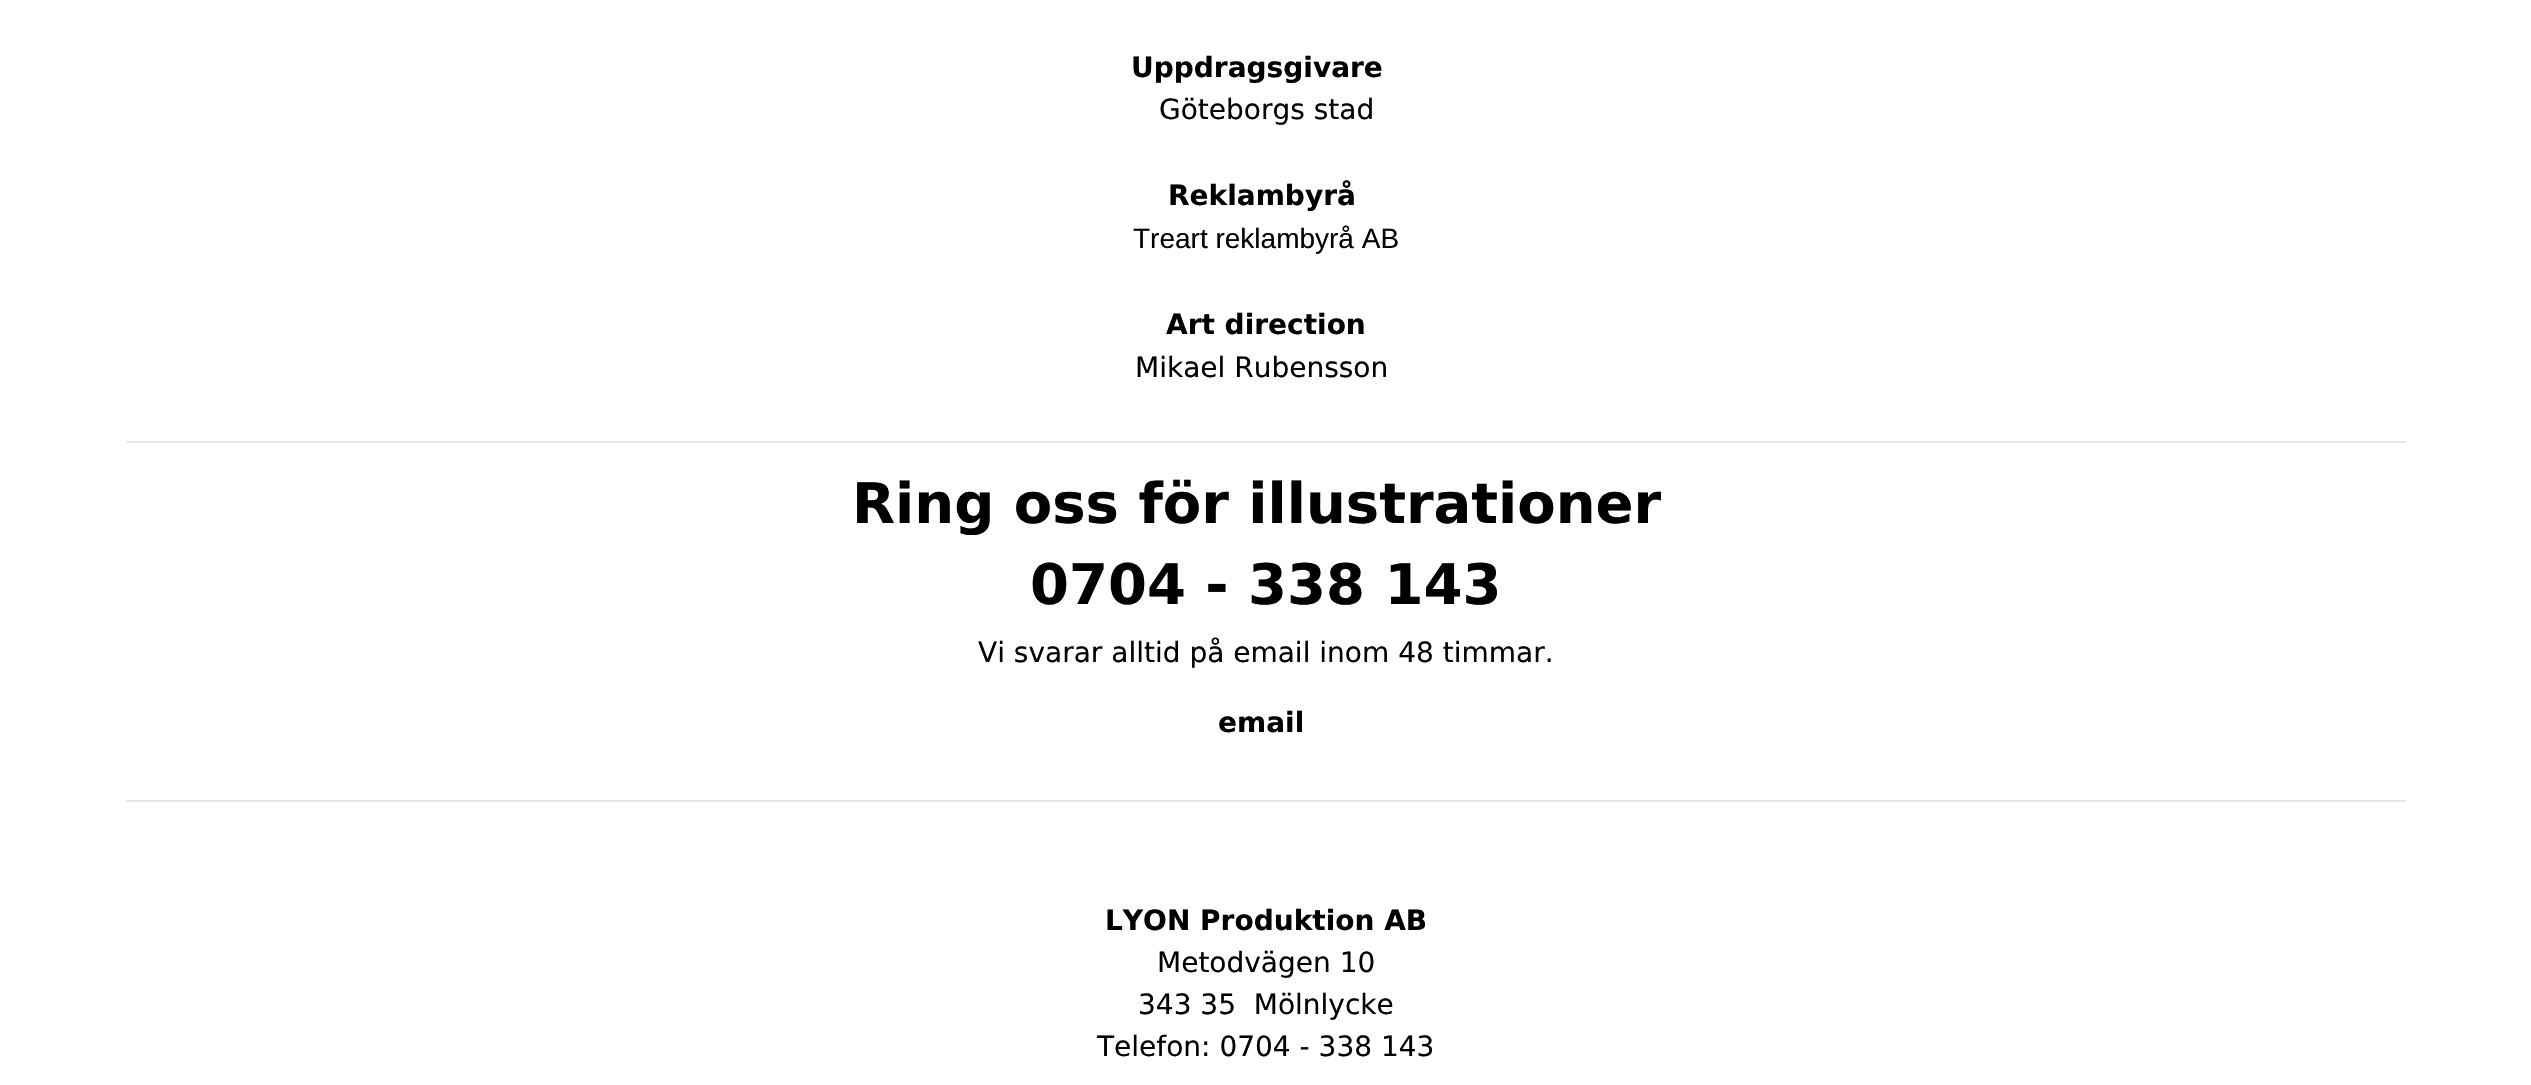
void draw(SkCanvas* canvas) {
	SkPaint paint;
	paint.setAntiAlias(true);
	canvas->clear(0xffffffff);
	SkFont f1(fontMgr->matchFamilyStyle("DejaVu Sans", SkFontStyle::Bold()), 28);
	f1.setSubpixel(true);
	paint.setColor(0xff000000);
	canvas->drawString("Uppdragsgivare", 1131, 77, f1, paint);
	SkFont f2(fontMgr->matchFamilyStyle("DejaVu Sans", SkFontStyle::Normal()), 28);
	f2.setSubpixel(true);
	canvas->drawString("Göteborgs stad", 1159, 119, f2, paint);
	canvas->drawString("Reklambyrå", 1168, 205, f1, paint);
	SkFont f3(fontMgr->matchFamilyStyle("Liberation Sans", SkFontStyle::Normal()), 28);
	f3.setSubpixel(true);
	canvas->drawString("Treart reklambyrå AB", 1133, 248, f3, paint);
	canvas->drawString("Art direction", 1166, 334, f1, paint);
	canvas->drawString("Mikael Rubensson", 1135, 377, f2, paint);
	paint.setColor(0xffe6e6e6);
	canvas->drawRect(SkRect::MakeXYWH(126, 441, 2280, 2), paint);
	SkFont f4(fontMgr->matchFamilyStyle("DejaVu Sans", SkFontStyle::Bold()), 56);
	f4.setSubpixel(true);
	paint.setColor(0xff000000);
	canvas->drawString("Ring oss för illustrationer", 852, 523, f4, paint);
	canvas->drawString("0704 - 338 143", 1030, 604, f4, paint);
	canvas->drawString("Vi svarar alltid på email inom 48 timmar.", 978, 662, f2, paint);
	canvas->drawString("email", 1218, 732, f1, paint);
	paint.setColor(0xffe6e6e6);
	canvas->drawRect(SkRect::MakeXYWH(126, 800, 2280, 2), paint);
	paint.setColor(0xff000000);
	canvas->drawString("LYON Produktion AB", 1105, 930, f1, paint);
	canvas->drawString("Metodvägen 10", 1157, 972, f2, paint);
	canvas->drawString("343 35  Mölnlycke", 1138, 1014, f2, paint);
	canvas->drawString("Telefon: 0704 - 338 143", 1097, 1056, f2, paint);
}
